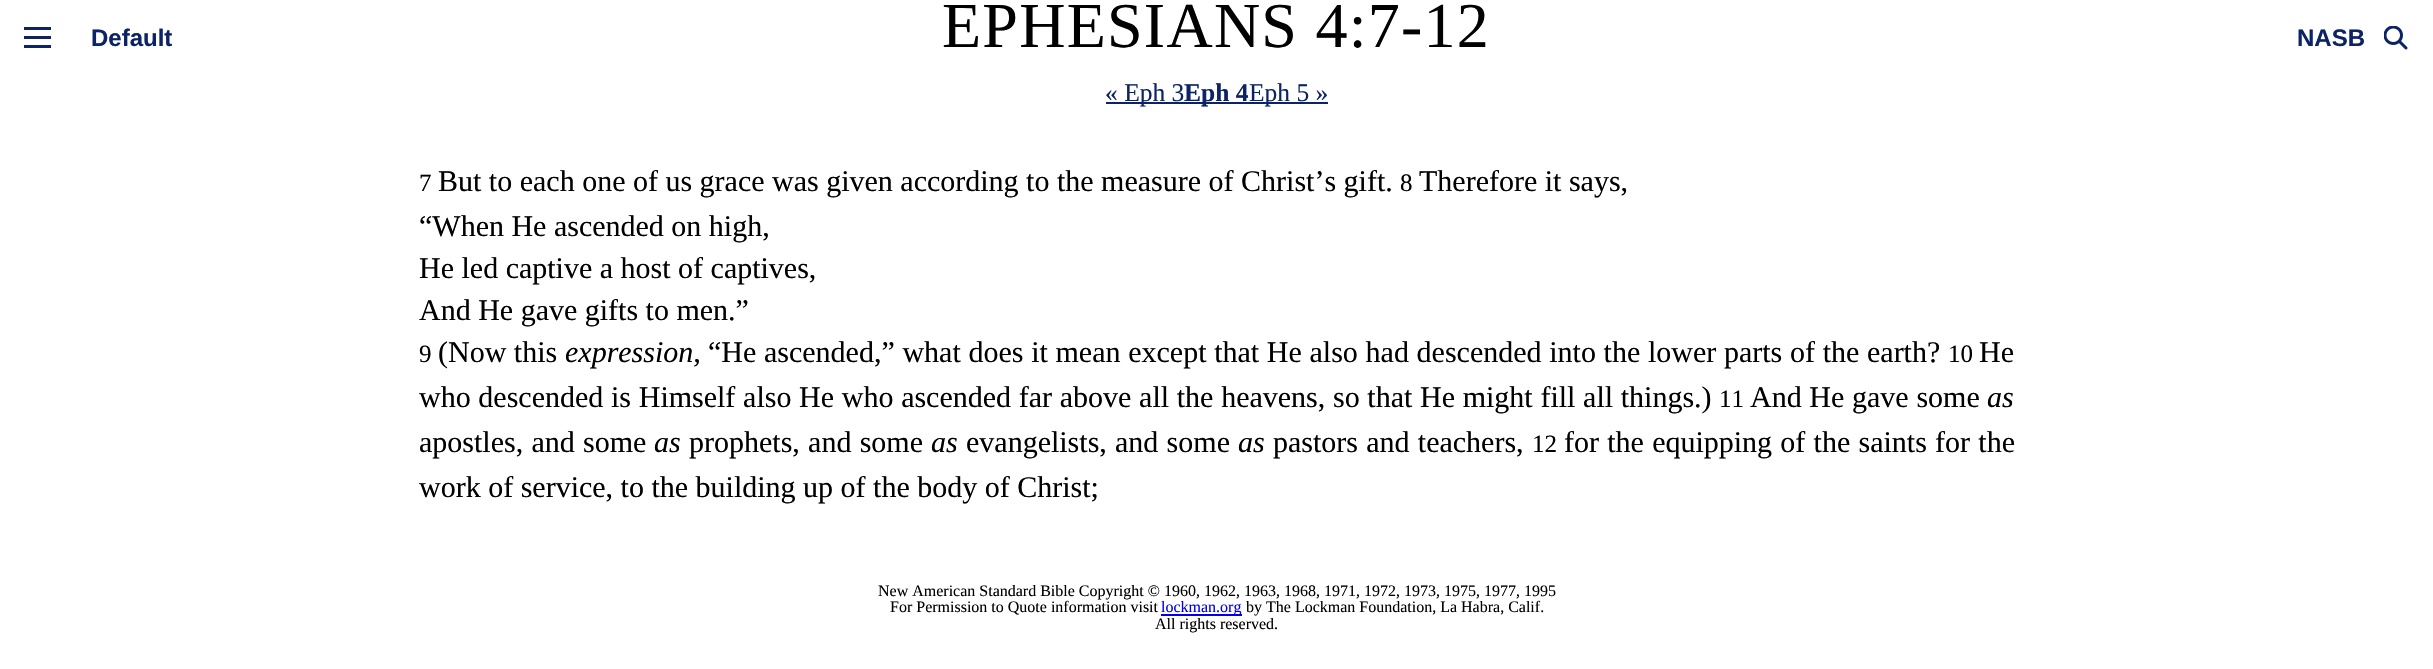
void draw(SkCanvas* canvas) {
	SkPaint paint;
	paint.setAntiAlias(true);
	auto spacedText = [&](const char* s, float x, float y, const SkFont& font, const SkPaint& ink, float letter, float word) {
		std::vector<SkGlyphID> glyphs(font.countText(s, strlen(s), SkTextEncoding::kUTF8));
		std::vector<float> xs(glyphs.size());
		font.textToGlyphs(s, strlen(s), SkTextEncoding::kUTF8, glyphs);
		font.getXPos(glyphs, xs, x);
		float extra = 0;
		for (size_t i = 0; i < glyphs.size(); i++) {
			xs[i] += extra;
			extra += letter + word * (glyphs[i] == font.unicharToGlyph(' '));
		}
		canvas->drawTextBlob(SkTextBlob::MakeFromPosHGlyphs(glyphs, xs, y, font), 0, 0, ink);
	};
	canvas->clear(0xffffffff);
	paint.setColor(0xff0c2365);
	canvas->drawRect(SkRect::MakeXYWH(24, 27, 27, 3), paint);
	canvas->drawRect(SkRect::MakeXYWH(24, 36, 27, 3), paint);
	canvas->drawRect(SkRect::MakeXYWH(24, 45, 27, 3), paint);
	SkFont f1(fontMgr->matchFamilyStyle("Liberation Serif", SkFontStyle::Normal()), 64);
	f1.setSubpixel(true);
	paint.setColor(0xff000000);
	spacedText("EPHESIANS 4:7-12", 942, 47, f1, paint, 1.25, 0);
	paint.setColor(0xff0c2365);
	canvas->drawRect(SkRect::MakeXYWH(1106, 102, 222, 2), paint);
	SkFont f2(fontMgr->matchFamilyStyle("Liberation Serif", SkFontStyle::Normal()), 25.5);
	f2.setSubpixel(true);
	canvas->drawString("« Eph 3", 1105, 101, f2, paint);
	SkFont f3(fontMgr->matchFamilyStyle("Liberation Serif", SkFontStyle::Bold()), 25.5);
	f3.setSubpixel(true);
	canvas->drawString("Eph 4", 1184, 101, f3, paint);
	canvas->drawString("Eph 5 »", 1249, 101, f2, paint);
	SkFont f4(fontMgr->matchFamilyStyle("Liberation Serif", SkFontStyle::Normal()), 25);
	f4.setSubpixel(true);
	paint.setColor(0xff000000);
	canvas->drawString("8", 1400, 191, f4, paint);
	SkFont f5(fontMgr->matchFamilyStyle("Liberation Serif", SkFontStyle::Normal()), 30);
	f5.setSubpixel(true);
	canvas->drawString("Therefore it says,", 1419, 191, f5, paint);
	canvas->drawString("“When He ascended on high,", 419, 236, f5, paint);
	canvas->drawString("He led captive a host of captives,", 419, 278, f5, paint);
	canvas->drawString("And He gave gifts to men.”", 419, 320, f5, paint);
	canvas->drawString("7", 419, 191, f4, paint);
	canvas->drawString("But to each one of us grace was given according to the measure of Christ’s gift.", 438, 191, f5, paint);
	canvas->drawString("9", 419, 362, f4, paint);
	canvas->drawString("(Now this", 438, 362, f5, paint);
	SkFont f6(fontMgr->matchFamilyStyle("Liberation Serif", SkFontStyle::Italic()), 30);
	f6.setSubpixel(true);
	canvas->drawString("expression,", 565, 362, f6, paint);
	spacedText("“He ascended,” what does it mean except that He also had descended into the lower parts of the earth?", 708, 362, f5, paint, 0, 0.2);
	canvas->drawString("10", 1948, 362, f4, paint);
	canvas->drawString("He", 1979, 362, f5, paint);
	spacedText("who descended is Himself also He who ascended far above all the heavens, so that He might fill all things.)", 419, 407, f5, paint, 0, 0.2);
	canvas->drawString("11", 1719, 407, f4, paint);
	spacedText("And He gave some", 1750, 407, f5, paint, 0, 0.2);
	canvas->drawString("as", 1987, 407, f6, paint);
	spacedText("apostles, and some", 419, 452, f5, paint, 0, 0.75);
	canvas->drawString("as", 654, 452, f6, paint);
	spacedText("prophets, and some", 689, 452, f5, paint, 0, 0.75);
	canvas->drawString("as", 931, 452, f6, paint);
	spacedText("evangelists, and some", 966, 452, f5, paint, 0, 0.75);
	canvas->drawString("as", 1238, 452, f6, paint);
	spacedText("pastors and teachers,", 1273, 452, f5, paint, 0, 0.75);
	canvas->drawString("12", 1532, 452, f4, paint);
	spacedText("for the equipping of the saints for the", 1564, 452, f5, paint, 0, 0.75);
	canvas->drawString("work of service, to the building up of the body of Christ;", 419, 497, f5, paint);
	SkFont f7(fontMgr->matchFamilyStyle("Liberation Serif", SkFontStyle::Normal()), 16);
	f7.setSubpixel(true);
	canvas->drawString("New American Standard Bible Copyright © 1960, 1962, 1963, 1968, 1971, 1972, 1973, 1975, 1977, 1995", 878, 596, f7, paint);
	canvas->drawString("For Permission to Quote information visit", 890, 612, f7, paint);
	paint.setColor(0xff0000ee);
	canvas->drawRect(SkRect::MakeXYWH(1161, 614, 81, 2), paint);
	canvas->drawString("lockman.org", 1161, 612, f7, paint);
	paint.setColor(0xff000000);
	canvas->drawString("by The Lockman Foundation, La Habra, Calif.", 1246, 612, f7, paint);
	canvas->drawString("All rights reserved.", 1155, 629, f7, paint);
	SkFont f8(fontMgr->matchFamilyStyle("Liberation Sans", SkFontStyle::Bold()), 24);
	f8.setSubpixel(true);
	paint.setColor(0xff0c2365);
	canvas->drawString("Default", 91, 46, f8, paint);
	canvas->drawString("NASB", 2297, 46, f8, paint);
	canvas->drawImageRect(SkImages::DeferredFromEncodedData(SkData::MakeFromFileName("img1.png")), SkRect::MakeXYWH(2384, 26, 24, 24), SkSamplingOptions());
}
